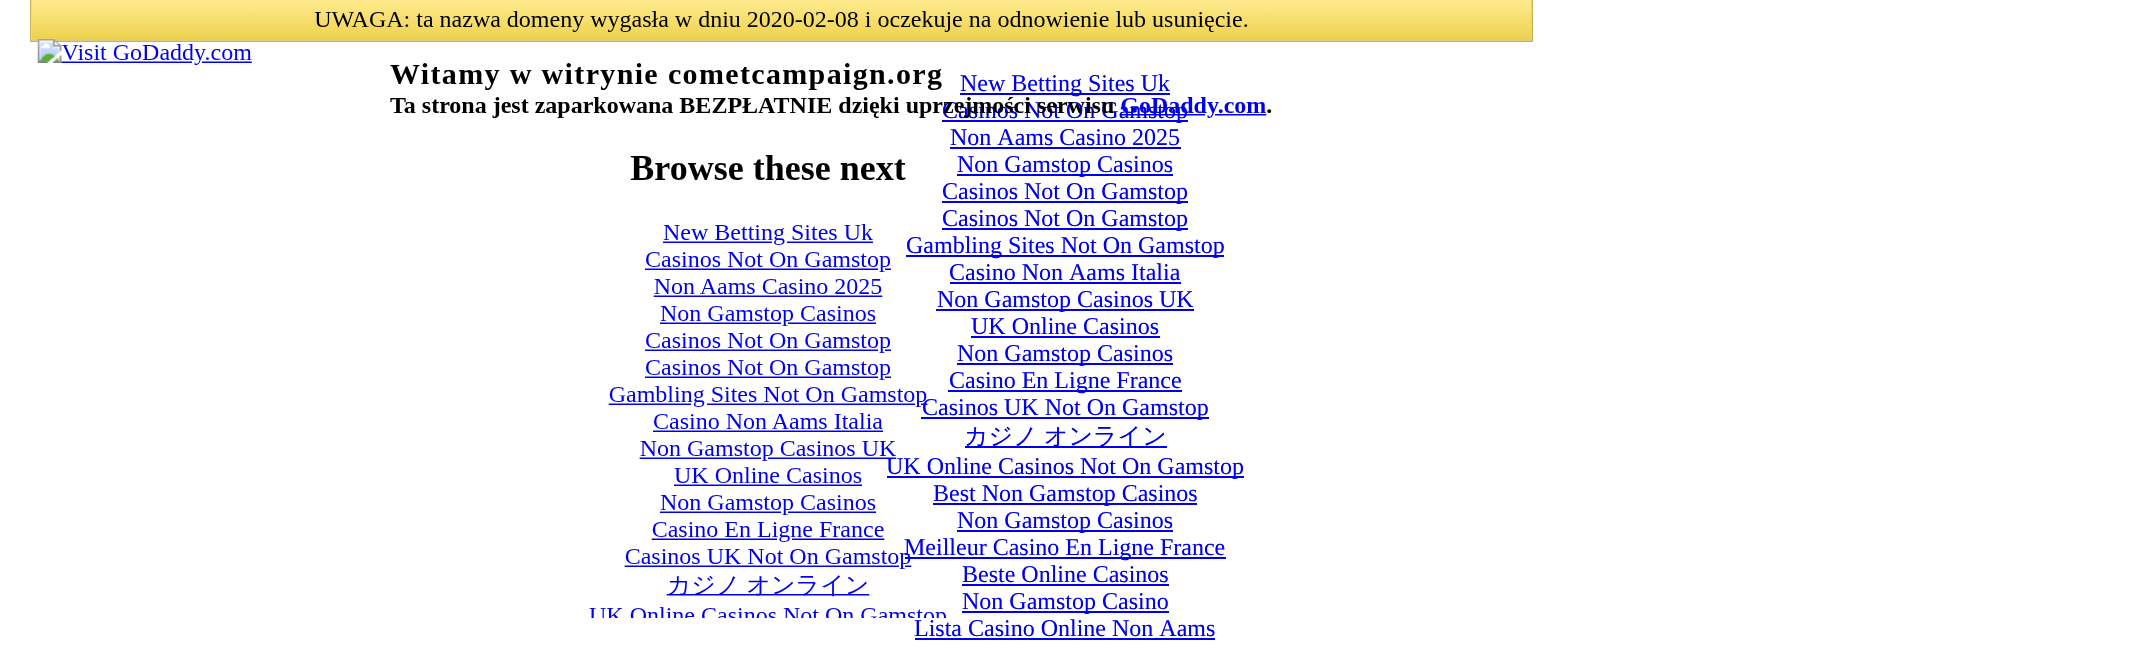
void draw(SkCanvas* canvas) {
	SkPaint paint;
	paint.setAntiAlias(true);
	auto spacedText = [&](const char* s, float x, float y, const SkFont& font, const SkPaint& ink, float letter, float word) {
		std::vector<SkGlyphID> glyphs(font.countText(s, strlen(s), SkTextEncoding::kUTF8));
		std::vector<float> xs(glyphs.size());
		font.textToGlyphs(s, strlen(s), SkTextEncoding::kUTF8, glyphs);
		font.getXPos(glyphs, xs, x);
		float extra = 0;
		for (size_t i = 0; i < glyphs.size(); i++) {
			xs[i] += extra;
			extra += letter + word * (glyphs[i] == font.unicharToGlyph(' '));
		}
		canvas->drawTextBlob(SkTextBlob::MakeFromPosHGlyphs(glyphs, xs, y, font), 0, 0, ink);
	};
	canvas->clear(0xffffffff);
	paint.setColor(0xff0000ee);
	canvas->drawRect(SkRect::MakeXYWH(960, 93, 210, 2), paint);
	SkFont f1(fontMgr->matchFamilyStyle("Liberation Serif", SkFontStyle::Normal()), 24);
	f1.setSubpixel(true);
	canvas->drawString("New Betting Sites Uk", 960, 91, f1, paint);
	canvas->drawRect(SkRect::MakeXYWH(942, 120, 246, 2), paint);
	canvas->drawString("Casinos Not On Gamstop", 942, 118, f1, paint);
	canvas->drawString("Non Aams Casino 2025", 950, 145, f1, paint);
	canvas->drawRect(SkRect::MakeXYWH(950, 147, 231, 2), paint);
	canvas->drawRect(SkRect::MakeXYWH(957, 174, 216, 2), paint);
	canvas->drawString("Non Gamstop Casinos", 957, 172, f1, paint);
	canvas->drawRect(SkRect::MakeXYWH(942, 201, 246, 2), paint);
	canvas->drawString("Casinos Not On Gamstop", 942, 199, f1, paint);
	canvas->drawRect(SkRect::MakeXYWH(942, 228, 246, 2), paint);
	canvas->drawString("Casinos Not On Gamstop", 942, 226, f1, paint);
	canvas->drawRect(SkRect::MakeXYWH(906, 255, 318, 2), paint);
	canvas->drawString("Gambling Sites Not On Gamstop", 906, 253, f1, paint);
	canvas->drawString("Casino Non Aams Italia", 949, 280, f1, paint);
	canvas->drawRect(SkRect::MakeXYWH(950, 282, 231, 2), paint);
	canvas->drawRect(SkRect::MakeXYWH(936, 309, 258, 2), paint);
	canvas->drawString("Non Gamstop Casinos UK", 937, 307, f1, paint);
	canvas->drawString("UK Online Casinos", 971, 334, f1, paint);
	canvas->drawRect(SkRect::MakeXYWH(971, 336, 189, 2), paint);
	canvas->drawRect(SkRect::MakeXYWH(957, 363, 216, 2), paint);
	canvas->drawString("Non Gamstop Casinos", 957, 361, f1, paint);
	canvas->drawRect(SkRect::MakeXYWH(948, 390, 234, 2), paint);
	canvas->drawString("Casino En Ligne France", 949, 388, f1, paint);
	canvas->drawRect(SkRect::MakeXYWH(921, 417, 288, 2), paint);
	canvas->drawString("Casinos UK Not On Gamstop", 922, 415, f1, paint);
	canvas->drawRect(SkRect::MakeXYWH(965, 446, 202, 2), paint);
	SkFont f2(fontMgr->matchFamilyStyle("WenQuanYi Zen Hei", SkFontStyle(500, SkFontStyle::kNormal_Width, SkFontStyle::kUpright_Slant)), 24);
	f2.setSubpixel(true);
	spacedText("カジノ オンライン", 964, 444, f2, paint, 0, -1);
	canvas->drawRect(SkRect::MakeXYWH(887, 476, 357, 2), paint);
	canvas->drawString("UK Online Casinos Not On Gamstop", 886, 474, f1, paint);
	canvas->drawRect(SkRect::MakeXYWH(933, 503, 264, 2), paint);
	canvas->drawString("Best Non Gamstop Casinos", 933, 501, f1, paint);
	canvas->drawRect(SkRect::MakeXYWH(957, 530, 216, 2), paint);
	canvas->drawString("Non Gamstop Casinos", 957, 528, f1, paint);
	canvas->drawRect(SkRect::MakeXYWH(905, 557, 321, 2), paint);
	canvas->drawString("Meilleur Casino En Ligne France", 904, 555, f1, paint);
	canvas->drawString("Beste Online Casinos", 962, 582, f1, paint);
	canvas->drawRect(SkRect::MakeXYWH(962, 584, 207, 2), paint);
	canvas->drawRect(SkRect::MakeXYWH(962, 611, 207, 2), paint);
	canvas->drawString("Non Gamstop Casino", 962, 609, f1, paint);
	canvas->drawImageRect(SkImages::DeferredFromEncodedData(SkData::MakeFromFileName("img1.png")), SkRect::MakeXYWH(30, 0, 1503, 618), SkSamplingOptions());
	canvas->drawString("Lista Casino Online Non Aams", 914, 636, f1, paint);
	canvas->drawRect(SkRect::MakeXYWH(915, 638, 300, 2), paint);
}
